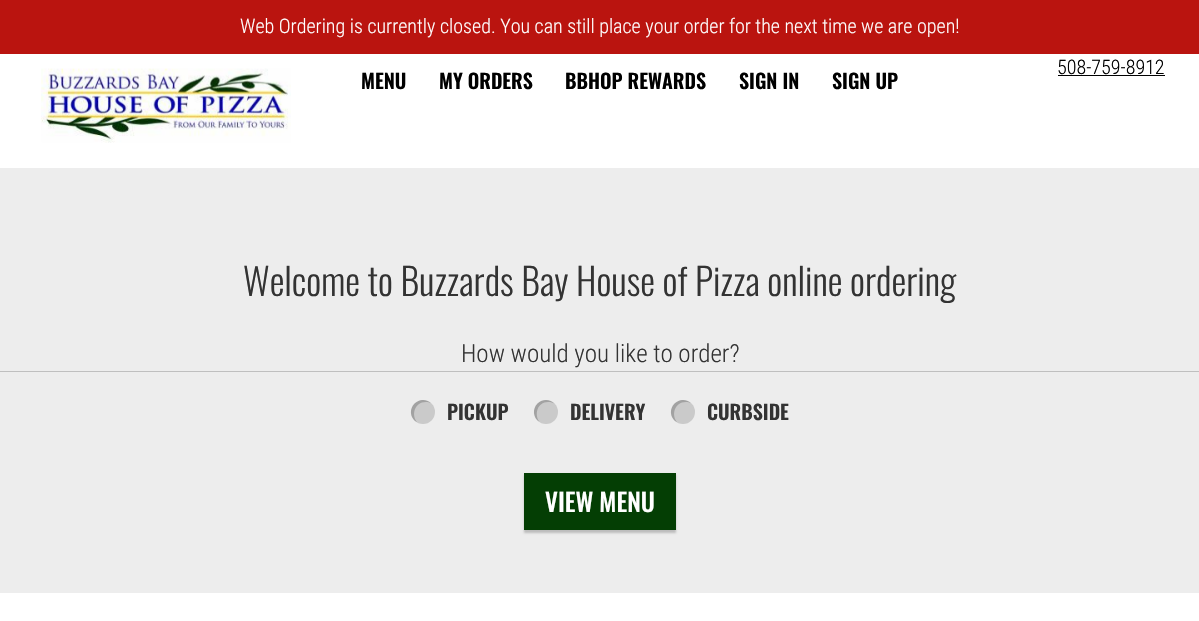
void draw(SkCanvas* canvas) {
	SkPaint paint;
	paint.setAntiAlias(true);
	auto svgPath = [&](const char* data, bool evenOdd = false) {
		SkPath result = *SkParsePath::FromSVGString(data);
		if (evenOdd) result.setFillType(SkPathFillType::kEvenOdd);
		return result;
	};
	canvas->clear(0xffffffff);
	paint.setColor(0xffba140f);
	canvas->drawRect(SkRect::MakeXYWH(0, 0, 1199, 54), paint);
	SkFont f1(fontMgr->matchFamilyStyle("Roboto Condensed", SkFontStyle(300, SkFontStyle::kNormal_Width, SkFontStyle::kUpright_Slant)), 20);
	f1.setSubpixel(true);
	paint.setColor(0xffffffff);
	canvas->drawString("Web Ordering is currently closed. You can still place your order for the next time we are open!", 240, 33, f1, paint);
	canvas->drawImageRect(SkImages::DeferredFromEncodedData(SkData::MakeFromFileName("img1.png")), SkRect::MakeXYWH(41, 68, 250, 75), SkSamplingOptions());
	paint.setColor(0xff000000);
	canvas->drawString("508-759-8912", 1057, 74, f1, paint);
	canvas->drawRect(SkRect::MakeXYWH(1058, 75, 107, 1), paint);
	SkFont f2(fontMgr->matchFamilyStyle("Oswald", SkFontStyle(600, SkFontStyle::kNormal_Width, SkFontStyle::kUpright_Slant)), 20);
	f2.setSubpixel(true);
	canvas->drawString("MENU", 361, 89, f2, paint);
	canvas->drawString("MY ORDERS", 439, 89, f2, paint);
	canvas->drawString("BBHOP REWARDS", 565, 89, f2, paint);
	canvas->drawString("SIGN IN", 739, 89, f2, paint);
	canvas->drawString("SIGN UP", 832, 89, f2, paint);
	paint.setColor(0xffededed);
	canvas->drawRect(SkRect::MakeXYWH(0, 168, 1199, 425), paint);
	SkFont f3(fontMgr->matchFamilyStyle("Oswald", SkFontStyle(300, SkFontStyle::kNormal_Width, SkFontStyle::kUpright_Slant)), 37.25);
	f3.setSubpixel(true);
	paint.setColor(0xff333333);
	canvas->drawString("Welcome to Buzzards Bay House of Pizza online ordering", 243, 296, f3, paint);
	SkFont f4(fontMgr->matchFamilyStyle("Roboto Condensed", SkFontStyle(300, SkFontStyle::kNormal_Width, SkFontStyle::kUpright_Slant)), 25);
	f4.setSubpixel(true);
	canvas->drawString("How would you like to order?", 461, 362, f4, paint);
	paint.setColor(0xffbfbfbf);
	canvas->drawRect(SkRect::MakeXYWH(0, 371, 1199, 1), paint);
	paint.setColor(0xffcacaca);
	canvas->drawCircle(423, 412, 12, paint);
	paint.setColor(0x33000000);
	canvas->drawPath(svgPath("M426 402C428 402 429.5 402.5 431 403C421.5 394.5 407 405 412 417C413 419 415 421.5 417.5 422.5C411 416 414 402 426 402Z"), paint);
	paint.setColor(0xff333333);
	canvas->drawString("PICKUP", 447, 420, f2, paint);
	paint.setColor(0xffcacaca);
	canvas->drawCircle(546, 412, 12, paint);
	paint.setColor(0x33000000);
	canvas->drawPath(svgPath("M548 402C551 402 553 402.5 555 404C550.5 399 542.5 398.5 537.5 403.5C532 409 533 418 539.5 422C534 415 537 402 548 402Z"), paint);
	paint.setColor(0xff333333);
	canvas->drawString("DELIVERY", 570, 420, f2, paint);
	paint.setColor(0xffcacaca);
	canvas->drawCircle(683, 412, 12, paint);
	paint.setColor(0x33000000);
	canvas->drawPath(svgPath("M686 402C688 402 689.5 402.5 691 403C681.5 394.5 667 405 672 417C673 419 675 421.5 677.5 422.5C671 416 674 402 686 402Z"), paint);
	paint.setColor(0xff333333);
	canvas->drawString("CURBSIDE", 707, 420, f2, paint);
	paint.setColor(0x33000000);
	paint.setMaskFilter(SkMaskFilter::MakeBlur(kNormal_SkBlurStyle, 1));
	canvas->drawRect(SkRect::MakeXYWH(524, 475, 152, 58), paint);
	paint.setMaskFilter(nullptr);
	paint.setColor(0xff043e04);
	canvas->drawRect(SkRect::MakeXYWH(524, 473, 152, 57), paint);
	SkFont f5(fontMgr->matchFamilyStyle("Oswald", SkFontStyle(500, SkFontStyle::kNormal_Width, SkFontStyle::kUpright_Slant)), 25);
	f5.setSubpixel(true);
	paint.setColor(0xffffffff);
	canvas->drawString("VIEW MENU", 545, 512, f5, paint);
}
